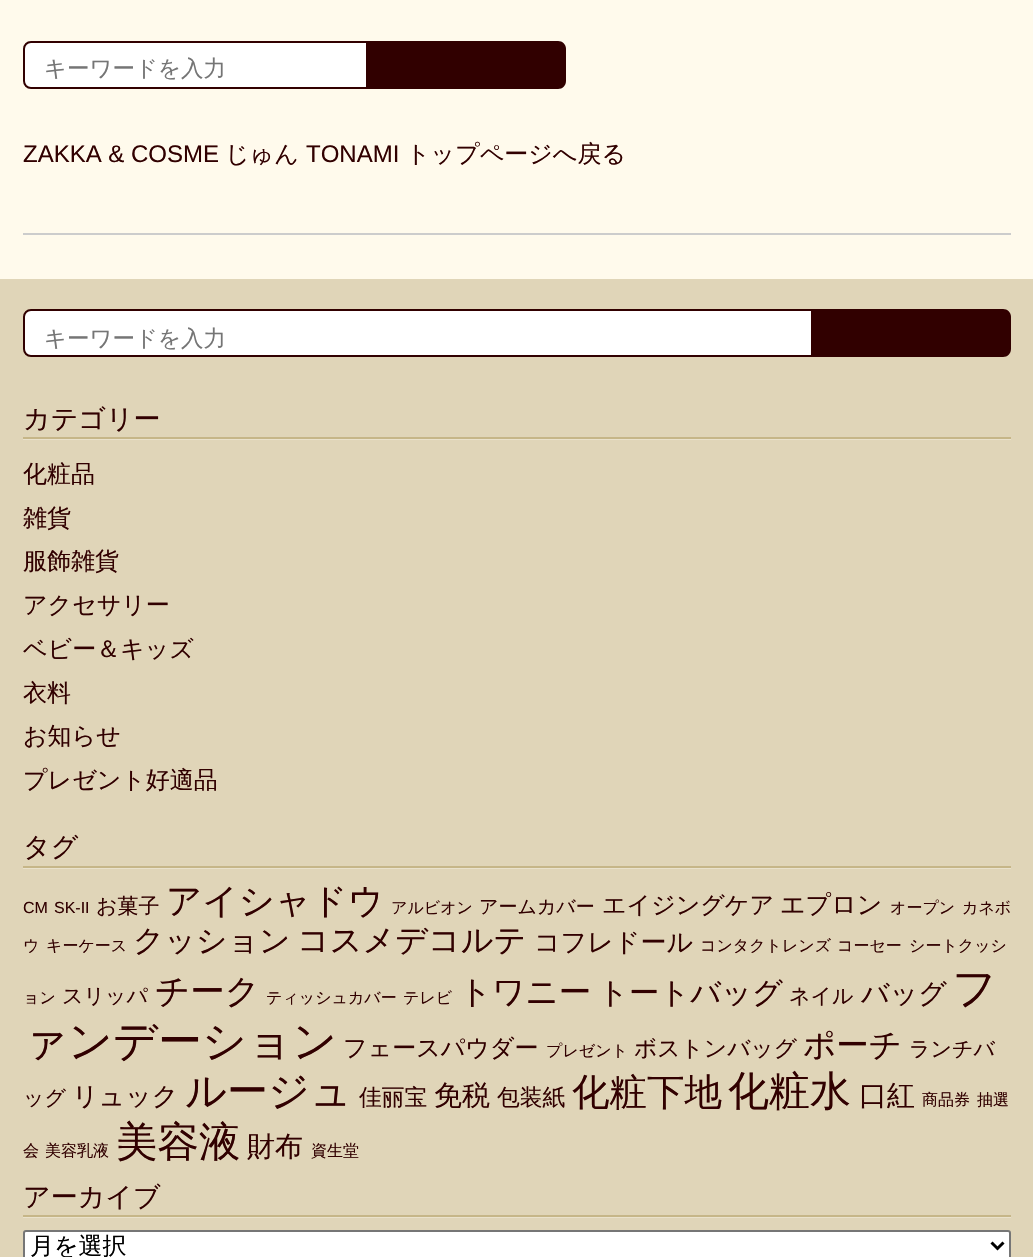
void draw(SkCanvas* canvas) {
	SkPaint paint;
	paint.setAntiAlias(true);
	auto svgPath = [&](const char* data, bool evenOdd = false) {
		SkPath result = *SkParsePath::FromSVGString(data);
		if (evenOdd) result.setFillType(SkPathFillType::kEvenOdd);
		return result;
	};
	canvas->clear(0xfffffaec);
	paint.setColor(0xffcccccc);
	canvas->drawRect(SkRect::MakeXYWH(23, 233, 988, 2), paint);
	paint.setColor(0xffffffff);
	canvas->drawPath(svgPath("M31 42H367V88H31C27 88 24 85 24 81V49C24 45 27 42 31 42Z"), paint);
	paint.setStroke(true);
	paint.setStrokeWidth(2);
	paint.setColor(0xff310000);
	canvas->drawPath(svgPath("M31 42H367V88H31C27 88 24 85 24 81V49C24 45 27 42 31 42Z"), paint);
	SkFont f1(fontMgr->matchFamilyStyle("WenQuanYi Zen Hei", SkFontStyle(500, SkFontStyle::kNormal_Width, SkFontStyle::kUpright_Slant)), 22.5);
	f1.setSubpixel(true);
	paint.setStroke(false);
	paint.setColor(0xff757575);
	canvas->drawString("キーワードを入力", 44, 76, f1, paint);
	paint.setColor(0xff310000);
	canvas->drawPath(svgPath("M368 41H558C562.5 41 566 44.5 566 49V81C566 85.5 562.5 89 558 89H368Z"), paint);
	SkFont f2(fontMgr->matchFamilyStyle("Liberation Sans", SkFontStyle::Normal()), 24);
	f2.setSubpixel(true);
	canvas->drawString("ZAKKA & COSME", 23, 162, f2, paint);
	SkFont f3(fontMgr->matchFamilyStyle("WenQuanYi Zen Hei", SkFontStyle(500, SkFontStyle::kNormal_Width, SkFontStyle::kUpright_Slant)), 24);
	f3.setSubpixel(true);
	canvas->drawString("じゅん", 225, 162, f3, paint);
	canvas->drawString("TONAMI", 306, 162, f2, paint);
	canvas->drawString("トップページへ戻る", 406, 162, f3, paint);
	paint.setColor(0xffe0d5b8);
	canvas->drawRect(SkRect::MakeXYWH(0, 279, 1033, 978), paint);
	paint.setColor(0xffffffff);
	canvas->drawPath(svgPath("M31 310H812V356H31C27 356 24 353 24 349V317C24 313 27 310 31 310Z"), paint);
	paint.setStroke(true);
	paint.setColor(0xff310000);
	canvas->drawPath(svgPath("M31 310H812V356H31C27 356 24 353 24 349V317C24 313 27 310 31 310Z"), paint);
	paint.setStroke(false);
	paint.setColor(0xff757575);
	canvas->drawString("キーワードを入力", 44, 346, f1, paint);
	paint.setColor(0xff310000);
	canvas->drawPath(svgPath("M813 309H1003C1007.5 309 1011 312.5 1011 317V349C1011 353.5 1007.5 357 1003 357H813Z"), paint);
	paint.setColor(0xffeae2cc);
	canvas->drawRect(SkRect::MakeXYWH(23, 439, 988, 1), paint);
	paint.setColor(0xffc6b688);
	canvas->drawRect(SkRect::MakeXYWH(23, 437, 988, 2), paint);
	SkFont f4(fontMgr->matchFamilyStyle("WenQuanYi Zen Hei", SkFontStyle(500, SkFontStyle::kNormal_Width, SkFontStyle::kUpright_Slant)), 27);
	f4.setSubpixel(true);
	paint.setColor(0xff310000);
	canvas->drawString("カテゴリー", 23, 428, f4, paint);
	canvas->drawString("化粧品", 23, 482, f3, paint);
	canvas->drawString("雑貨", 23, 526, f3, paint);
	canvas->drawString("服飾雑貨", 23, 569, f3, paint);
	canvas->drawString("アクセサリー", 23, 613, f3, paint);
	canvas->drawString("ベビー＆キッズ", 23, 657, f3, paint);
	canvas->drawString("衣料", 23, 701, f3, paint);
	canvas->drawString("お知らせ", 23, 744, f3, paint);
	canvas->drawString("プレゼント好適品", 23, 788, f3, paint);
	paint.setColor(0xffeae2cc);
	canvas->drawRect(SkRect::MakeXYWH(23, 868, 988, 1), paint);
	paint.setColor(0xffc6b688);
	canvas->drawRect(SkRect::MakeXYWH(23, 866, 988, 2), paint);
	paint.setColor(0xff310000);
	canvas->drawString("タグ", 23, 856, f4, paint);
	SkFont f5(fontMgr->matchFamilyStyle("Liberation Sans", SkFontStyle::Normal()), 16);
	f5.setSubpixel(true);
	canvas->drawString("CM", 23, 913, f5, paint);
	canvas->drawString("SK-II", 54, 913, f5, paint);
	SkFont f6(fontMgr->matchFamilyStyle("WenQuanYi Zen Hei", SkFontStyle(500, SkFontStyle::kNormal_Width, SkFontStyle::kUpright_Slant)), 21);
	f6.setSubpixel(true);
	canvas->drawString("お菓子", 96, 913, f6, paint);
	SkFont f7(fontMgr->matchFamilyStyle("WenQuanYi Zen Hei", SkFontStyle(500, SkFontStyle::kNormal_Width, SkFontStyle::kUpright_Slant)), 35.5);
	f7.setSubpixel(true);
	canvas->drawString("アイシャドウ", 166, 913, f7, paint);
	SkFont f8(fontMgr->matchFamilyStyle("WenQuanYi Zen Hei", SkFontStyle(500, SkFontStyle::kNormal_Width, SkFontStyle::kUpright_Slant)), 16);
	f8.setSubpixel(true);
	canvas->drawString("アルビオン", 391, 913, f8, paint);
	SkFont f9(fontMgr->matchFamilyStyle("WenQuanYi Zen Hei", SkFontStyle(500, SkFontStyle::kNormal_Width, SkFontStyle::kUpright_Slant)), 19);
	f9.setSubpixel(true);
	canvas->drawString("アームカバー", 479, 913, f9, paint);
	canvas->drawString("エイジングケア", 602, 913, f3, paint);
	SkFont f10(fontMgr->matchFamilyStyle("WenQuanYi Zen Hei", SkFontStyle(500, SkFontStyle::kNormal_Width, SkFontStyle::kUpright_Slant)), 25);
	f10.setSubpixel(true);
	canvas->drawString("エプロン", 780, 913, f10, paint);
	canvas->drawString("オープン", 890, 913, f8, paint);
	canvas->drawString("カネボ", 962, 913, f8, paint);
	canvas->drawString("ウ", 23, 951, f8, paint);
	canvas->drawString("キーケース", 46, 951, f8, paint);
	SkFont f11(fontMgr->matchFamilyStyle("WenQuanYi Zen Hei", SkFontStyle(500, SkFontStyle::kNormal_Width, SkFontStyle::kUpright_Slant)), 30.75);
	f11.setSubpixel(true);
	canvas->drawString("クッション", 133, 951, f11, paint);
	SkFont f12(fontMgr->matchFamilyStyle("WenQuanYi Zen Hei", SkFontStyle(500, SkFontStyle::kNormal_Width, SkFontStyle::kUpright_Slant)), 32);
	f12.setSubpixel(true);
	canvas->drawString("コスメデコルテ", 297, 951, f12, paint);
	SkFont f13(fontMgr->matchFamilyStyle("WenQuanYi Zen Hei", SkFontStyle(500, SkFontStyle::kNormal_Width, SkFontStyle::kUpright_Slant)), 26);
	f13.setSubpixel(true);
	canvas->drawString("コフレドール", 534, 951, f13, paint);
	canvas->drawString("コンタクトレンズ", 700, 951, f8, paint);
	canvas->drawString("コーセー", 837, 951, f8, paint);
	canvas->drawString("シートクッシ", 909, 951, f8, paint);
	canvas->drawString("ョン", 23, 1003, f8, paint);
	canvas->drawString("スリッパ", 62, 1003, f6, paint);
	SkFont f14(fontMgr->matchFamilyStyle("WenQuanYi Zen Hei", SkFontStyle(500, SkFontStyle::kNormal_Width, SkFontStyle::kUpright_Slant)), 34.5);
	f14.setSubpixel(true);
	canvas->drawString("チーク", 155, 1003, f14, paint);
	canvas->drawString("ティッシュカバー", 266, 1003, f8, paint);
	canvas->drawString("テレビ", 403, 1003, f8, paint);
	SkFont f15(fontMgr->matchFamilyStyle("WenQuanYi Zen Hei", SkFontStyle(500, SkFontStyle::kNormal_Width, SkFontStyle::kUpright_Slant)), 32.5);
	f15.setSubpixel(true);
	canvas->drawString("トワニー", 459, 1003, f15, paint);
	SkFont f16(fontMgr->matchFamilyStyle("WenQuanYi Zen Hei", SkFontStyle(500, SkFontStyle::kNormal_Width, SkFontStyle::kUpright_Slant)), 30.25);
	f16.setSubpixel(true);
	canvas->drawString("トートバッグ", 598, 1003, f16, paint);
	canvas->drawString("ネイル", 789, 1003, f6, paint);
	SkFont f17(fontMgr->matchFamilyStyle("WenQuanYi Zen Hei", SkFontStyle(500, SkFontStyle::kNormal_Width, SkFontStyle::kUpright_Slant)), 28);
	f17.setSubpixel(true);
	canvas->drawString("バッグ", 861, 1003, f17, paint);
	SkFont f18(fontMgr->matchFamilyStyle("WenQuanYi Zen Hei", SkFontStyle(500, SkFontStyle::kNormal_Width, SkFontStyle::kUpright_Slant)), 44);
	f18.setSubpixel(true);
	canvas->drawString("フ", 952, 1003, f18, paint);
	canvas->drawString("ァンデーション", 23, 1056, f18, paint);
	canvas->drawString("フェースパウダー", 343, 1056, f3, paint);
	canvas->drawString("プレゼント", 546, 1056, f8, paint);
	SkFont f19(fontMgr->matchFamilyStyle("WenQuanYi Zen Hei", SkFontStyle(500, SkFontStyle::kNormal_Width, SkFontStyle::kUpright_Slant)), 22.75);
	f19.setSubpixel(true);
	canvas->drawString("ボストンバッグ", 634, 1056, f19, paint);
	canvas->drawString("ポーチ", 803, 1056, f15, paint);
	canvas->drawString("ランチバ", 909, 1056, f6, paint);
	canvas->drawString("ッグ", 23, 1105, f6, paint);
	canvas->drawString("リュック", 72, 1105, f13, paint);
	SkFont f20(fontMgr->matchFamilyStyle("WenQuanYi Zen Hei", SkFontStyle(500, SkFontStyle::kNormal_Width, SkFontStyle::kUpright_Slant)), 41);
	f20.setSubpixel(true);
	canvas->drawString("ルージュ", 185, 1105, f20, paint);
	canvas->drawString("佳丽宝", 359, 1105, f19, paint);
	canvas->drawString("免税", 434, 1105, f17, paint);
	canvas->drawString("包装紙", 497, 1105, f19, paint);
	SkFont f21(fontMgr->matchFamilyStyle("WenQuanYi Zen Hei", SkFontStyle(500, SkFontStyle::kNormal_Width, SkFontStyle::kUpright_Slant)), 37.5);
	f21.setSubpixel(true);
	canvas->drawString("化粧下地", 572, 1105, f21, paint);
	canvas->drawString("化粧水", 728, 1105, f20, paint);
	canvas->drawString("口紅", 859, 1105, f17, paint);
	canvas->drawString("商品券", 922, 1105, f8, paint);
	canvas->drawString("抽選", 977, 1105, f8, paint);
	canvas->drawString("会", 23, 1156, f8, paint);
	canvas->drawString("美容乳液", 45, 1156, f8, paint);
	SkFont f22(fontMgr->matchFamilyStyle("WenQuanYi Zen Hei", SkFontStyle(500, SkFontStyle::kNormal_Width, SkFontStyle::kUpright_Slant)), 41.5);
	f22.setSubpixel(true);
	canvas->drawString("美容液", 116, 1156, f22, paint);
	canvas->drawString("財布", 247, 1156, f17, paint);
	canvas->drawString("資生堂", 311, 1156, f8, paint);
	paint.setColor(0xffeae2cc);
	canvas->drawRect(SkRect::MakeXYWH(23, 1217, 988, 1), paint);
	paint.setColor(0xffc6b688);
	canvas->drawRect(SkRect::MakeXYWH(23, 1215, 988, 2), paint);
	paint.setColor(0xff310000);
	canvas->drawString("アーカイブ", 23, 1206, f4, paint);
	paint.setColor(0xffffffff);
	canvas->drawRoundRect(SkRect::MakeXYWH(24, 1231, 986, 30), 2, 2, paint);
	paint.setStroke(true);
	paint.setColor(0xff767676);
	canvas->drawRoundRect(SkRect::MakeXYWH(24, 1231, 986, 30), 2, 2, paint);
	paint.setStrokeWidth(3);
	paint.setColor(0xff000000);
	canvas->drawPath(svgPath("M991.5 1242.5L997.5 1248.5L1003.5 1242.5"), paint);
	paint.setStroke(false);
	canvas->drawString("月を選択", 30, 1254, f3, paint);
}
